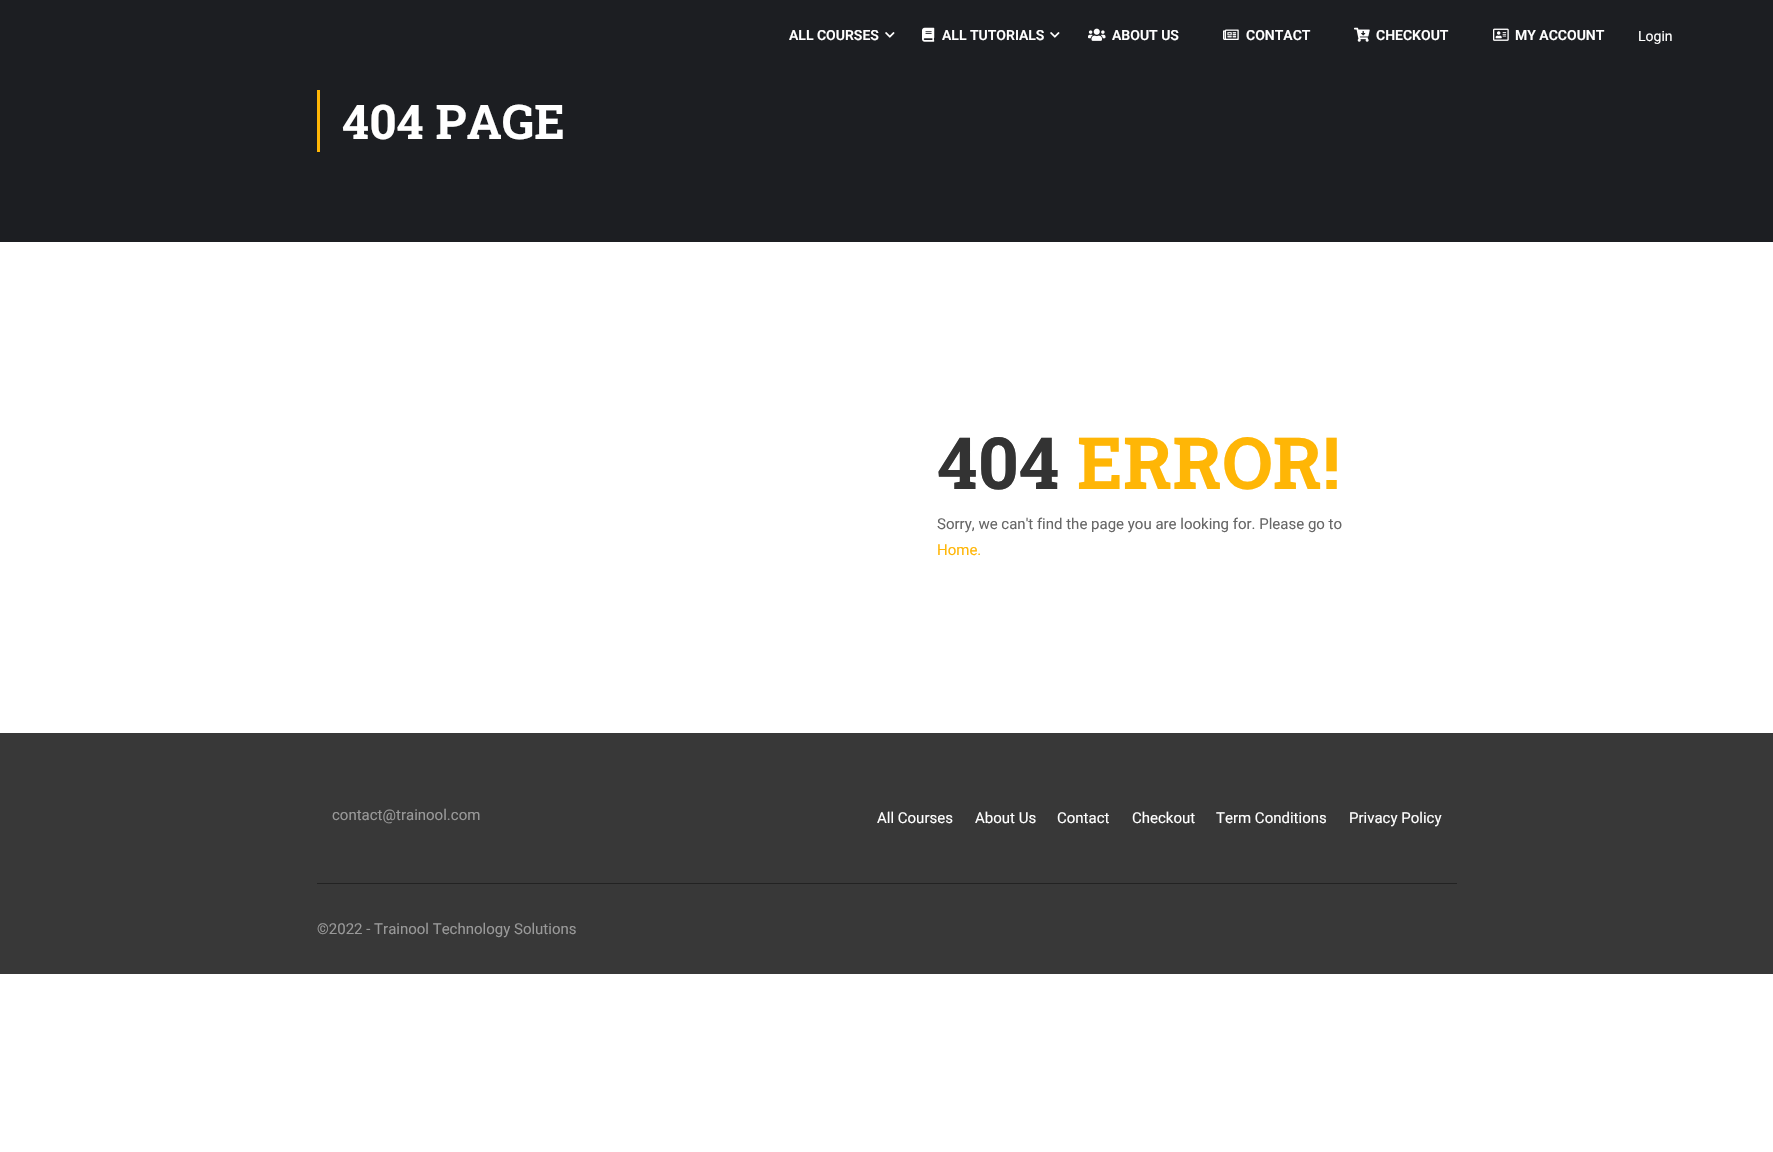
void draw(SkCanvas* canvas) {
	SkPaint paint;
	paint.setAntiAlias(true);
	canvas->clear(0xffffffff);
	paint.setColor(0xff1c1e22);
	canvas->drawRect(SkRect::MakeXYWH(0, 0, 1773, 242), paint);
	SkFont f1(fontMgr->matchFamilyStyle("Roboto", SkFontStyle(600, SkFontStyle::kNormal_Width, SkFontStyle::kUpright_Slant)), 14);
	f1.setSubpixel(true);
	paint.setColor(0xffffffff);
	canvas->drawString("ALL COURSES", 789, 40, f1, paint);
	canvas->drawImageRect(SkImages::DeferredFromEncodedData(SkData::MakeFromFileName("img1.png")), SkRect::MakeXYWH(885, 32, 10, 6), SkSamplingOptions());
	canvas->drawImageRect(SkImages::DeferredFromEncodedData(SkData::MakeFromFileName("img2.png")), SkRect::MakeXYWH(922, 27, 13, 15), SkSamplingOptions());
	canvas->drawString("ALL TUTORIALS", 942, 40, f1, paint);
	canvas->drawImageRect(SkImages::DeferredFromEncodedData(SkData::MakeFromFileName("img1.png")), SkRect::MakeXYWH(1050, 32, 10, 6), SkSamplingOptions());
	canvas->drawImageRect(SkImages::DeferredFromEncodedData(SkData::MakeFromFileName("img3.png")), SkRect::MakeXYWH(1088, 28, 18, 13), SkSamplingOptions());
	canvas->drawString("ABOUT US", 1112, 40, f1, paint);
	canvas->drawImageRect(SkImages::DeferredFromEncodedData(SkData::MakeFromFileName("img4.png")), SkRect::MakeXYWH(1223, 29, 16, 11), SkSamplingOptions());
	canvas->drawString("CONTACT", 1246, 40, f1, paint);
	canvas->drawImageRect(SkImages::DeferredFromEncodedData(SkData::MakeFromFileName("img5.png")), SkRect::MakeXYWH(1354, 27, 16, 15), SkSamplingOptions());
	canvas->drawString("CHECKOUT", 1376, 40, f1, paint);
	canvas->drawImageRect(SkImages::DeferredFromEncodedData(SkData::MakeFromFileName("img6.png")), SkRect::MakeXYWH(1493, 28, 16, 13), SkSamplingOptions());
	canvas->drawString("MY ACCOUNT", 1515, 40, f1, paint);
	SkFont f2(fontMgr->matchFamilyStyle("Roboto", SkFontStyle::Normal()), 14);
	f2.setSubpixel(true);
	canvas->drawString("Login", 1638, 41, f2, paint);
	paint.setColor(0xffffb606);
	canvas->drawRect(SkRect::MakeXYWH(317, 90, 3, 62), paint);
	SkFont f3(fontMgr->matchFamilyStyle("Roboto Slab", SkFontStyle::Bold()), 48);
	f3.setSubpixel(true);
	paint.setColor(0xffffffff);
	canvas->drawString("404 PAGE", 342, 139, f3, paint);
	SkFont f4(fontMgr->matchFamilyStyle("Roboto Slab", SkFontStyle::Bold()), 72);
	f4.setSubpixel(true);
	paint.setColor(0xff333333);
	canvas->drawString("404", 937, 489, f4, paint);
	paint.setColor(0xffffb606);
	canvas->drawString("ERROR!", 1077, 489, f4, paint);
	SkFont f5(fontMgr->matchFamilyStyle("Roboto", SkFontStyle::Normal()), 15);
	f5.setSubpixel(true);
	paint.setColor(0xff666666);
	canvas->drawString("Sorry, we can't find the page you are looking for. Please go to", 937, 529, f5, paint);
	paint.setColor(0xffffb606);
	canvas->drawString("Home.", 937, 555, f5, paint);
	paint.setColor(0xff383838);
	canvas->drawRect(SkRect::MakeXYWH(0, 733, 1773, 241), paint);
	paint.setColor(0xff999999);
	canvas->drawString("contact@trainool.com", 332, 820, f5, paint);
	paint.setColor(0xffffffff);
	canvas->drawString("All Courses", 877, 823, f5, paint);
	canvas->drawString("About Us", 975, 823, f5, paint);
	canvas->drawString("Contact", 1057, 823, f5, paint);
	canvas->drawString("Checkout", 1132, 823, f5, paint);
	canvas->drawString("Term Conditions", 1216, 823, f5, paint);
	canvas->drawString("Privacy Policy", 1349, 823, f5, paint);
	paint.setColor(0xff222222);
	canvas->drawRect(SkRect::MakeXYWH(317, 883, 1140, 1), paint);
	paint.setColor(0xff999999);
	canvas->drawString("©2022 - Trainool Technology Solutions", 317, 934, f5, paint);
}
